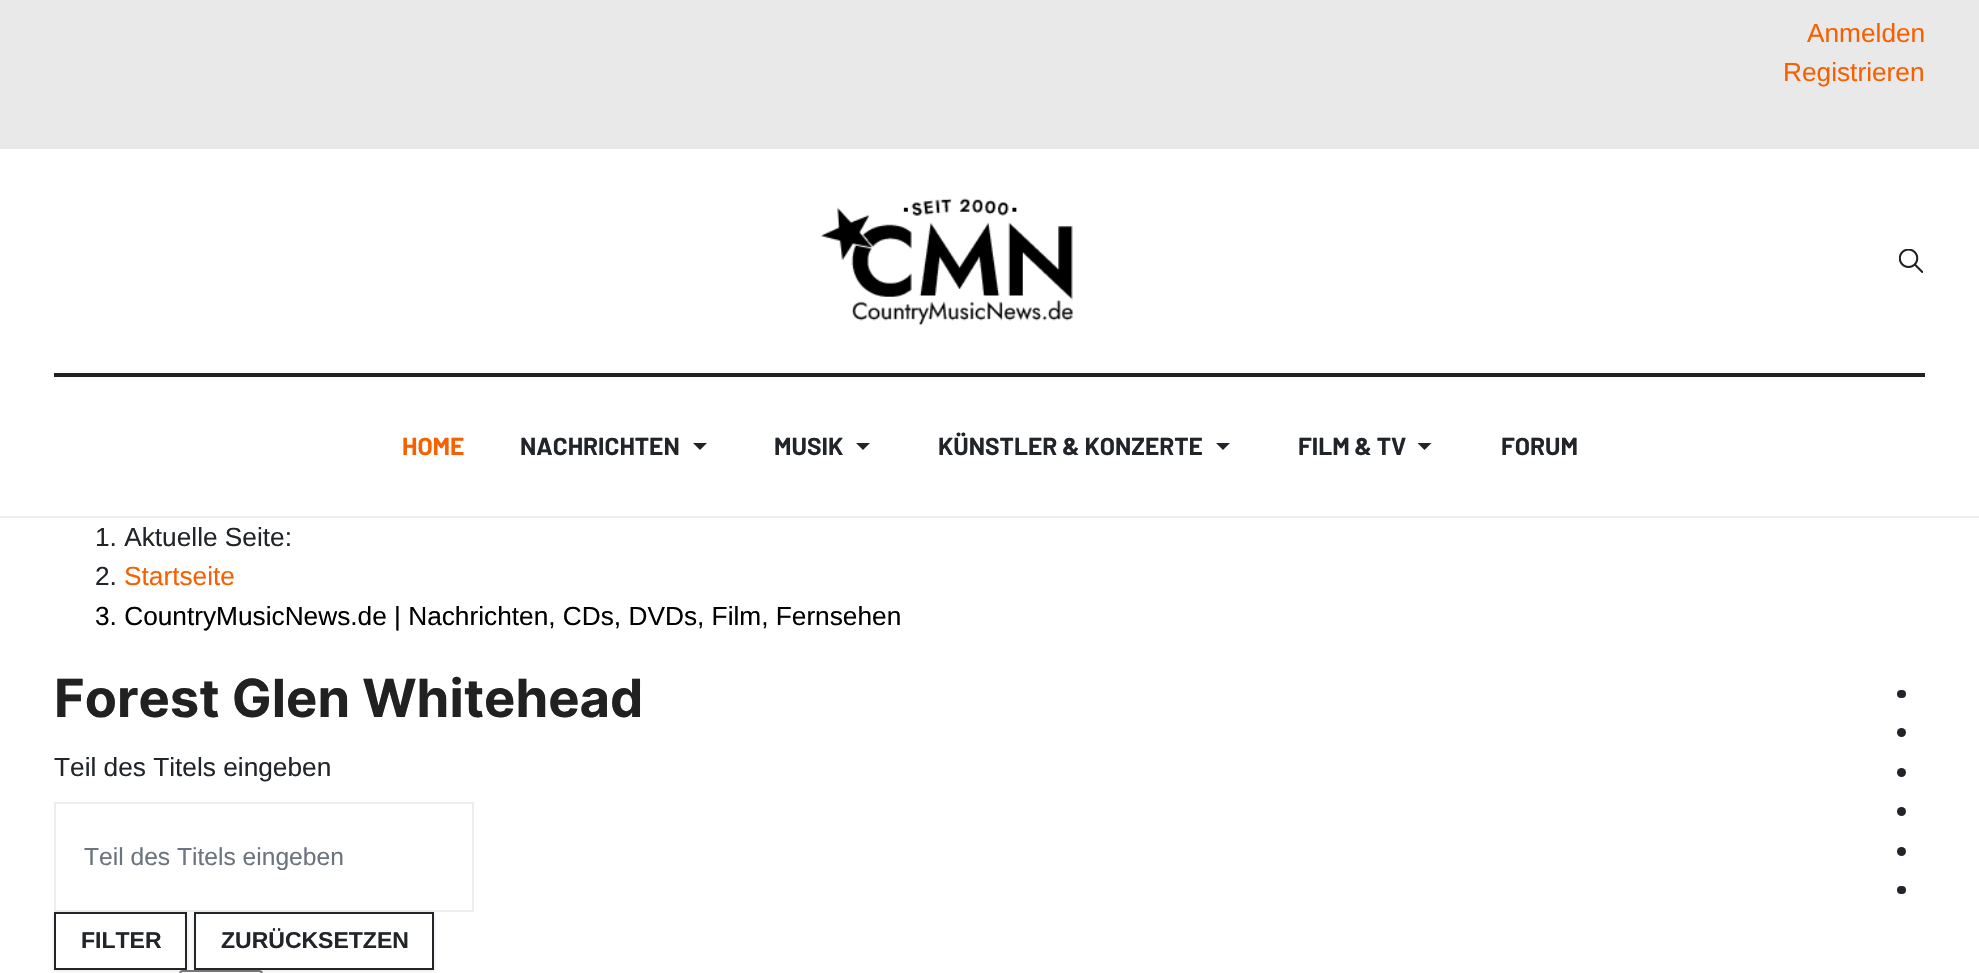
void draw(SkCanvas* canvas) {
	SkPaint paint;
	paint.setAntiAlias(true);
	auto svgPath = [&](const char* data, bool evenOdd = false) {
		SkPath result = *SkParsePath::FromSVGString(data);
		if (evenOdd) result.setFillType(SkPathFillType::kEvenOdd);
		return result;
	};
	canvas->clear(0xffffffff);
	paint.setColor(0xffe9e9e9);
	canvas->drawRect(SkRect::MakeXYWH(0, 0, 1979, 149), paint);
	SkFont f1(fontMgr->matchFamilyStyle("Liberation Sans", SkFontStyle::Normal()), 26.25);
	f1.setSubpixel(true);
	paint.setColor(0xfff76000);
	canvas->drawString("Anmelden", 1807, 42, f1, paint);
	canvas->drawString("Registrieren", 1783, 81, f1, paint);
	paint.setColor(0xffeeeeee);
	canvas->drawRect(SkRect::MakeXYWH(0, 516, 1979, 2), paint);
	paint.setColor(0xff212121);
	canvas->drawRect(SkRect::MakeXYWH(54, 373, 1871, 4), paint);
	canvas->drawImageRect(SkImages::DeferredFromEncodedData(SkData::MakeFromFileName("img1.png")), SkRect::MakeXYWH(821, 198, 253, 128), SkSamplingOptions());
	canvas->drawImageRect(SkImages::DeferredFromEncodedData(SkData::MakeFromFileName("img2.png")), SkRect::MakeXYWH(1899, 249, 24, 24), SkSamplingOptions());
	SkFont f2(fontMgr->matchFamilyStyle("Barlow", SkFontStyle::Bold()), 24.5);
	f2.setSubpixel(true);
	paint.setColor(0xfff76000);
	canvas->drawString("HOME", 402, 455, f2, paint);
	paint.setColor(0xff212529);
	canvas->drawString("NACHRICHTEN", 520, 455, f2, paint);
	canvas->drawPath(svgPath("M693 443H707L700 450Z"), paint);
	canvas->drawString("MUSIK", 774, 455, f2, paint);
	canvas->drawPath(svgPath("M856 443H870L863 450Z"), paint);
	canvas->drawString("KÜNSTLER & KONZERTE", 938, 455, f2, paint);
	canvas->drawPath(svgPath("M1216 443H1230L1223 450Z"), paint);
	canvas->drawString("FILM & TV", 1298, 455, f2, paint);
	canvas->drawPath(svgPath("M1417.5 443H1431.5L1424.5 450Z"), paint);
	canvas->drawString("FORUM", 1501, 455, f2, paint);
	canvas->drawString("1. Aktuelle Seite:", 95, 546, f1, paint);
	canvas->drawString("2.", 95, 585, f1, paint);
	paint.setColor(0xfff76000);
	canvas->drawString("Startseite", 124, 585, f1, paint);
	paint.setColor(0xff000000);
	canvas->drawString("3. CountryMusicNews.de | Nachrichten, CDs, DVDs, Film, Fernsehen", 95, 625, f1, paint);
	paint.setColor(0xff212529);
	canvas->drawRoundRect(SkRect::MakeXYWH(1897, 690, 9, 8), 4, 4, paint);
	canvas->drawCircle(1901.5, 732.5, 4.5, paint);
	canvas->drawCircle(1901.5, 772.5, 4.5, paint);
	canvas->drawCircle(1901.5, 811.5, 4.5, paint);
	canvas->drawCircle(1901.5, 851.5, 4.5, paint);
	canvas->drawRoundRect(SkRect::MakeXYWH(1897, 886, 9, 8), 4, 4, paint);
	SkFont f3(fontMgr->matchFamilyStyle("Inter", SkFontStyle::Bold()), 52.5);
	f3.setSubpixel(true);
	paint.setColor(0xff212121);
	canvas->drawString("Forest Glen Whitehead", 54, 717, f3, paint);
	paint.setColor(0xff212529);
	canvas->drawString("Teil des Titels eingeben", 54, 776, f1, paint);
	paint.setStroke(true);
	paint.setStrokeWidth(2);
	paint.setColor(0xffeeeeee);
	canvas->drawRect(SkRect::MakeXYWH(55, 803, 418, 108), paint);
	SkFont f4(fontMgr->matchFamilyStyle("Liberation Sans", SkFontStyle::Normal()), 24.6);
	f4.setSubpixel(true);
	paint.setStroke(false);
	paint.setColor(0xff6c757d);
	canvas->drawString("Teil des Titels eingeben", 84, 865, f4, paint);
	paint.setColor(0x1a000000);
	paint.setMaskFilter(SkMaskFilter::MakeBlur(kNormal_SkBlurStyle, 2));
	canvas->drawRect(SkRect::MakeXYWH(54, 914, 133, 57), paint);
	paint.setMaskFilter(nullptr);
	paint.setColor(0xffffffff);
	canvas->drawRect(SkRect::MakeXYWH(55, 913, 131, 56), paint);
	paint.setStroke(true);
	paint.setColor(0xff212529);
	canvas->drawRect(SkRect::MakeXYWH(55, 913, 131, 56), paint);
	SkFont f5(fontMgr->matchFamilyStyle("Liberation Sans", SkFontStyle::Bold()), 23);
	f5.setSubpixel(true);
	paint.setStroke(false);
	canvas->drawString("FILTER", 81, 948, f5, paint);
	paint.setColor(0x1a000000);
	paint.setMaskFilter(SkMaskFilter::MakeBlur(kNormal_SkBlurStyle, 2));
	canvas->drawRect(SkRect::MakeXYWH(194, 914, 240, 57), paint);
	paint.setMaskFilter(nullptr);
	paint.setColor(0xffffffff);
	canvas->drawRect(SkRect::MakeXYWH(195, 913, 238, 56), paint);
	paint.setStroke(true);
	paint.setColor(0xff212529);
	canvas->drawRect(SkRect::MakeXYWH(195, 913, 238, 56), paint);
	paint.setStroke(false);
	canvas->drawString("ZURÜCKSETZEN", 221, 948, f5, paint);
	paint.setColor(0xffffffff);
	canvas->drawRoundRect(SkRect::MakeXYWH(180, 971, 82, 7), 3, 3, paint);
	paint.setStroke(true);
	paint.setColor(0xff767676);
	canvas->drawRoundRect(SkRect::MakeXYWH(180, 971, 82, 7), 3, 3, paint);
}
